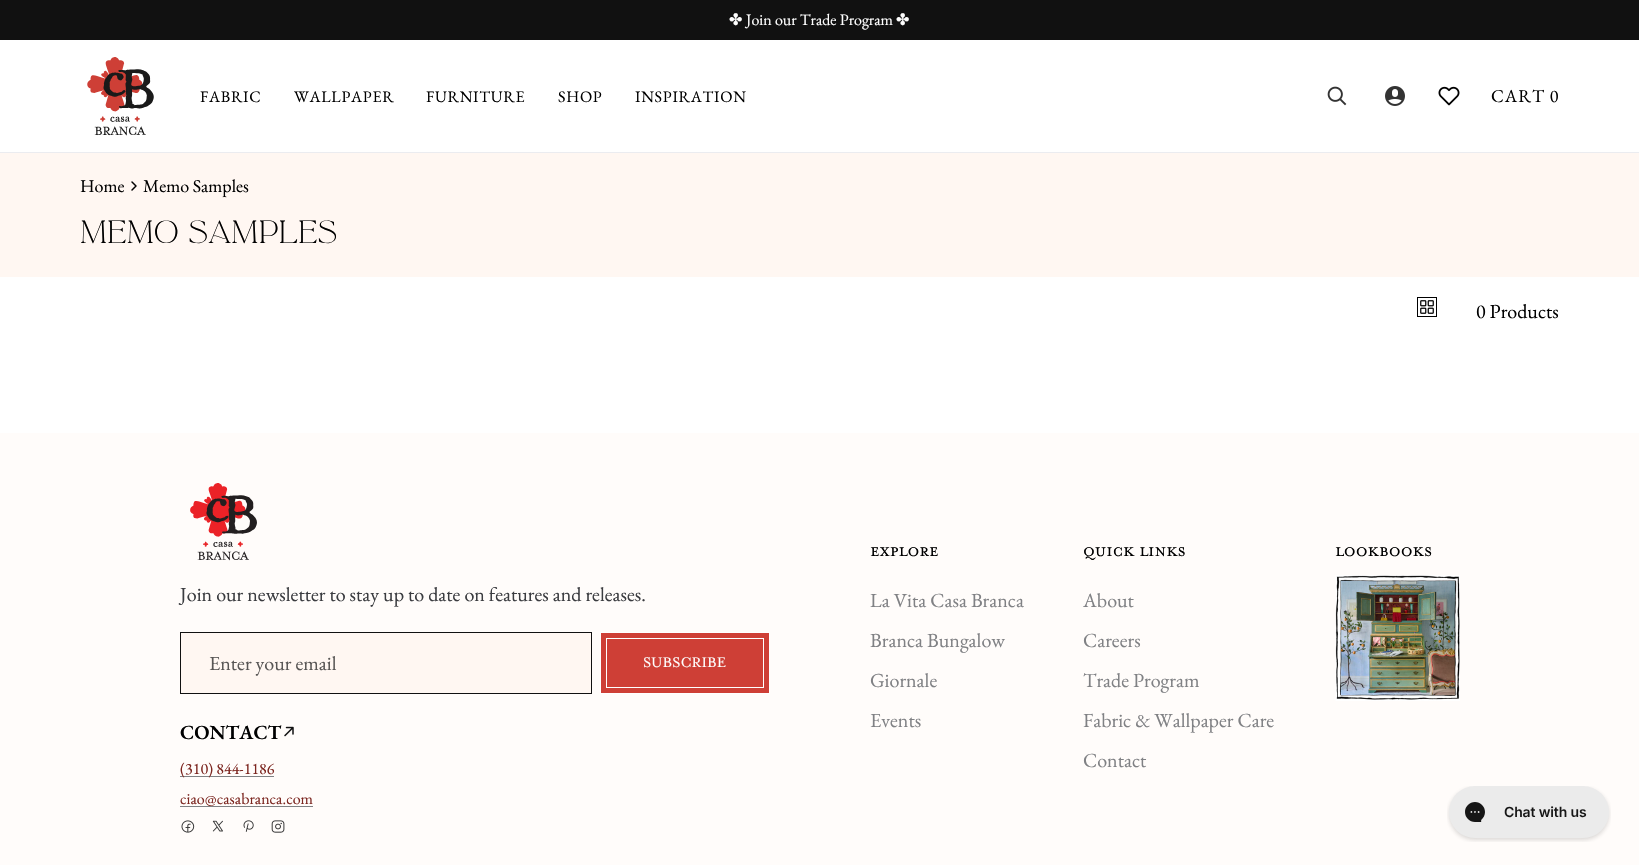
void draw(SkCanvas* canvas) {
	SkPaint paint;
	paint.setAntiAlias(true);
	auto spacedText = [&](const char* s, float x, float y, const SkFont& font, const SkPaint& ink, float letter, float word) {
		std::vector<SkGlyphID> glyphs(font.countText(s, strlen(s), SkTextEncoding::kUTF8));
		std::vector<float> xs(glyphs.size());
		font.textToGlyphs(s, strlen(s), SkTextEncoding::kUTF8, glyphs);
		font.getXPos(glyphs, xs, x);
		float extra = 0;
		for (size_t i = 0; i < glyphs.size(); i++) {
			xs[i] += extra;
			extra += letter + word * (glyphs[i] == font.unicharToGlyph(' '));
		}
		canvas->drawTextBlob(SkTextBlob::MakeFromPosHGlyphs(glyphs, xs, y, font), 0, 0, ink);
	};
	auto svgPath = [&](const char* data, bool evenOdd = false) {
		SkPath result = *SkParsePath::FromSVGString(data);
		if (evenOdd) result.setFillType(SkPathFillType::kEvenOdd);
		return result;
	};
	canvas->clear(0xffffffff);
	paint.setColor(0xff111111);
	canvas->drawRect(SkRect::MakeXYWH(0, 0, 1639, 40), paint);
	SkFont f1(fontMgr->matchFamilyStyle("DejaVu Sans", SkFontStyle::Normal()), 16);
	f1.setSubpixel(true);
	paint.setColor(0xffffffff);
	canvas->drawString("✤", 729, 25, f1, paint);
	SkFont f2(fontMgr->matchFamilyStyle("EB Garamond", SkFontStyle::Normal()), 16);
	f2.setSubpixel(true);
	canvas->drawString("Join our Trade Program", 746, 25, f2, paint);
	canvas->drawString("✤", 896, 25, f1, paint);
	paint.setColor(0xffebecf0);
	canvas->drawRect(SkRect::MakeXYWH(0, 152, 1639, 1), paint);
	canvas->drawImageRect(SkImages::DeferredFromEncodedData(SkData::MakeFromFileName("img1.png")), SkRect::MakeXYWH(87, 57, 67, 79), SkSamplingOptions());
	paint.setColor(0xff000000);
	spacedText("FABRIC", 200, 102, f2, paint, 0.75, 0);
	spacedText("WALLPAPER", 294, 102, f2, paint, 0.75, 0);
	spacedText("FURNITURE", 426, 102, f2, paint, 0.75, 0);
	spacedText("SHOP", 558, 102, f2, paint, 0.75, 0);
	spacedText("INSPIRATION", 635, 102, f2, paint, 0.75, 0);
	canvas->drawImageRect(SkImages::DeferredFromEncodedData(SkData::MakeFromFileName("img2.png")), SkRect::MakeXYWH(1327, 86, 20, 20), SkSamplingOptions());
	canvas->drawImageRect(SkImages::DeferredFromEncodedData(SkData::MakeFromFileName("img3.png")), SkRect::MakeXYWH(1385, 86, 20, 20), SkSamplingOptions());
	canvas->drawImageRect(SkImages::DeferredFromEncodedData(SkData::MakeFromFileName("img4.png")), SkRect::MakeXYWH(1438, 86, 22, 20), SkSamplingOptions());
	SkFont f3(fontMgr->matchFamilyStyle("EB Garamond", SkFontStyle::Normal()), 18);
	f3.setSubpixel(true);
	spacedText("CART 0", 1491, 102, f3, paint, 1, 0);
	paint.setColor(0xfffff7f2);
	canvas->drawRect(SkRect::MakeXYWH(0, 153, 1639, 124), paint);
	paint.setColor(0xff000000);
	canvas->drawString("Home", 80, 192, f3, paint);
	paint.setStroke(true);
	paint.setStrokeWidth(1.5);
	paint.setStrokeCap(SkPaint::kRound_Cap);
	paint.setStrokeJoin(SkPaint::kRound_Join);
	canvas->drawPath(svgPath("M132 182L136 186L132 190"), paint);
	paint.setStroke(false);
	canvas->drawString("Memo Samples", 143, 192, f3, paint);
	SkFont f4(fontMgr->matchFamilyStyle("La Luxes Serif", SkFontStyle::Normal()), 28);
	f4.setSubpixel(true);
	canvas->drawString("Memo Samples", 80, 243, f4, paint);
	canvas->drawImageRect(SkImages::DeferredFromEncodedData(SkData::MakeFromFileName("img5.png")), SkRect::MakeXYWH(1417, 297, 20, 20), SkSamplingOptions());
	SkFont f5(fontMgr->matchFamilyStyle("EB Garamond", SkFontStyle::Normal()), 20);
	f5.setSubpixel(true);
	canvas->drawString("0 Products", 1476, 318, f5, paint);
	paint.setColor(0xfffffcfa);
	canvas->drawRect(SkRect::MakeXYWH(0, 433, 1639, 432), paint);
	canvas->drawImageRect(SkImages::DeferredFromEncodedData(SkData::MakeFromFileName("img6.png")), SkRect::MakeXYWH(190, 483, 67, 78), SkSamplingOptions());
	paint.setColor(0xff3b3c40);
	canvas->drawString("Join our newsletter to stay up to date on features and releases.", 180, 601, f5, paint);
	paint.setColor(0xfffff7f2);
	canvas->drawRect(SkRect::MakeXYWH(180.5, 632.5, 411, 61), paint);
	paint.setStroke(true);
	paint.setStrokeWidth(1);
	paint.setStrokeCap(SkPaint::kButt_Cap);
	paint.setStrokeJoin(SkPaint::kMiter_Join);
	paint.setColor(0xff111111);
	canvas->drawRect(SkRect::MakeXYWH(180.5, 632.5, 411, 61), paint);
	paint.setStroke(false);
	paint.setColor(0xff585655);
	canvas->drawString("Enter your email", 209, 670, f5, paint);
	paint.setColor(0xffce3f36);
	canvas->drawRect(SkRect::MakeXYWH(600.5, 632.5, 169, 61), paint);
	paint.setStroke(true);
	paint.setColor(0xffffffff);
	canvas->drawRect(SkRect::MakeXYWH(600.5, 632.5, 169, 61), paint);
	canvas->drawRect(SkRect::MakeXYWH(606.5, 638.5, 157, 49), paint);
	SkFont f6(fontMgr->matchFamilyStyle("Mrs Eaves", SkFontStyle::Normal()), 16);
	f6.setSubpixel(true);
	paint.setStroke(false);
	canvas->drawString("SUBSCRIBE", 643, 667, f6, paint);
	SkFont f7(fontMgr->matchFamilyStyle("EB Garamond", SkFontStyle(600, SkFontStyle::kNormal_Width, SkFontStyle::kUpright_Slant)), 20);
	f7.setSubpixel(true);
	paint.setColor(0xff000000);
	canvas->drawString("CONTACT", 180, 739, f7, paint);
	canvas->drawImageRect(SkImages::DeferredFromEncodedData(SkData::MakeFromFileName("img7.png")), SkRect::MakeXYWH(284, 726, 10, 11), SkSamplingOptions());
	paint.setColor(0xff808184);
	canvas->drawRect(SkRect::MakeXYWH(180, 776, 94, 1), paint);
	paint.setColor(0xff7c2620);
	canvas->drawString("(310) 844-1186", 180, 774, f2, paint);
	paint.setColor(0xff808184);
	canvas->drawRect(SkRect::MakeXYWH(180, 806, 133, 1), paint);
	paint.setColor(0xff7c2620);
	canvas->drawString("ciao@casabranca.com", 180, 804, f2, paint);
	canvas->drawImageRect(SkImages::DeferredFromEncodedData(SkData::MakeFromFileName("img8.png")), SkRect::MakeXYWH(181, 820, 14, 13), SkSamplingOptions());
	canvas->drawImageRect(SkImages::DeferredFromEncodedData(SkData::MakeFromFileName("img9.png")), SkRect::MakeXYWH(212, 820, 11, 12), SkSamplingOptions());
	canvas->drawImageRect(SkImages::DeferredFromEncodedData(SkData::MakeFromFileName("img10.png")), SkRect::MakeXYWH(243, 820, 11, 12), SkSamplingOptions());
	canvas->drawImageRect(SkImages::DeferredFromEncodedData(SkData::MakeFromFileName("img11.png")), SkRect::MakeXYWH(271, 820, 14, 13), SkSamplingOptions());
	SkFont f8(fontMgr->matchFamilyStyle("Mrs Eaves", SkFontStyle::Normal()), 20);
	f8.setSubpixel(true);
	paint.setColor(0xff000000);
	canvas->drawString("explore", 870, 556, f8, paint);
	paint.setColor(0xff808184);
	canvas->drawString("La Vita Casa Branca", 870, 607, f5, paint);
	canvas->drawString("Branca Bungalow", 870, 647, f5, paint);
	canvas->drawString("Giornale", 870, 687, f5, paint);
	canvas->drawString("Events", 870, 727, f5, paint);
	paint.setColor(0xff000000);
	canvas->drawString("quick links", 1083, 556, f8, paint);
	paint.setColor(0xff808184);
	canvas->drawString("About", 1083, 607, f5, paint);
	canvas->drawString("Careers", 1083, 647, f5, paint);
	canvas->drawString("Trade Program", 1083, 687, f5, paint);
	canvas->drawString("Fabric & Wallpaper Care", 1083, 727, f5, paint);
	canvas->drawString("Contact", 1083, 767, f5, paint);
	paint.setColor(0xff000000);
	canvas->drawString("lookbooks", 1335, 556, f8, paint);
	canvas->drawImageRect(SkImages::DeferredFromEncodedData(SkData::MakeFromFileName("img12.png")), SkRect::MakeXYWH(1335, 575, 125, 126), SkSamplingOptions());
	canvas->drawImageRect(SkImages::DeferredFromEncodedData(SkData::MakeFromFileName("img13.png")), SkRect::MakeXYWH(1447, 786, 164, 56), SkSamplingOptions());
}
